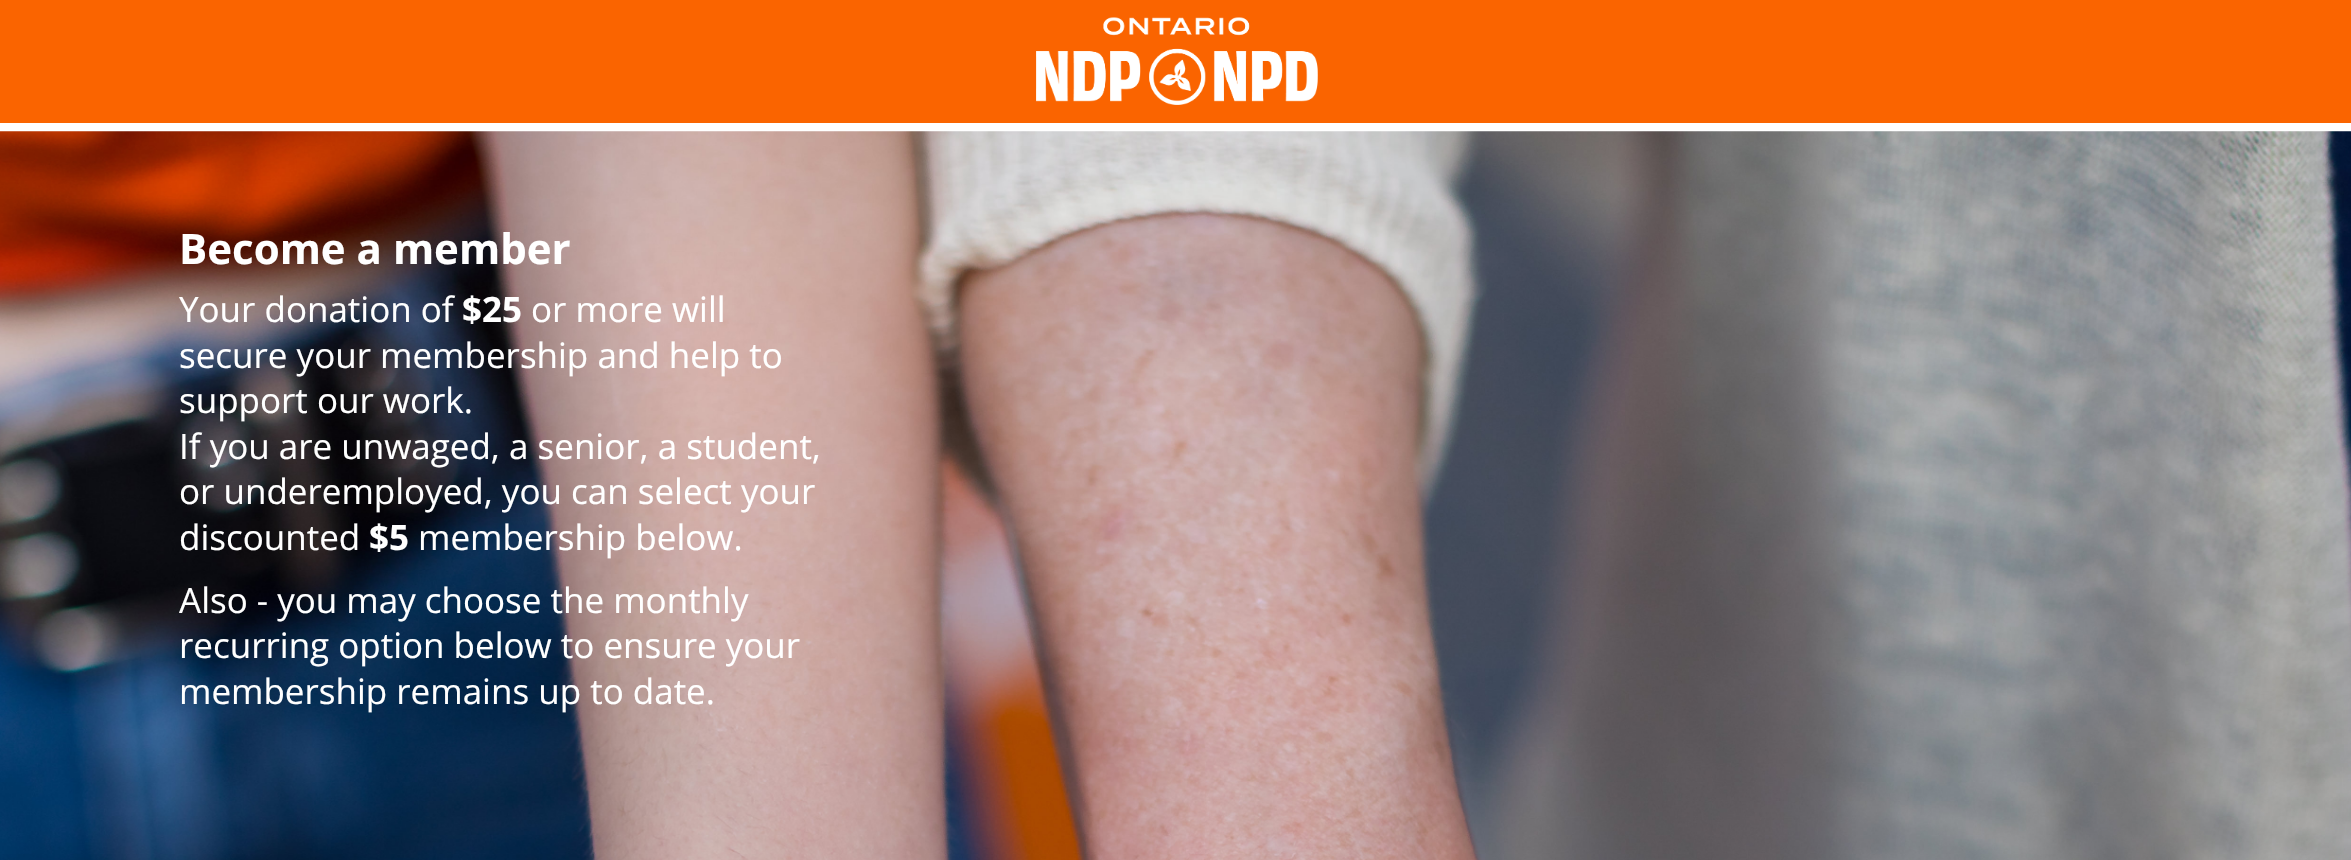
void draw(SkCanvas* canvas) {
	SkPaint paint;
	paint.setAntiAlias(true);
	canvas->clear(0xffffffff);
	paint.setColor(0xfffa6400);
	canvas->drawRect(SkRect::MakeXYWH(0, 0, 2351, 123), paint);
	canvas->drawImageRect(SkImages::DeferredFromEncodedData(SkData::MakeFromFileName("img1.png")), SkRect::MakeXYWH(1036, 17, 282, 88), SkSamplingOptions());
	canvas->drawImageRect(SkImages::DeferredFromEncodedData(SkData::MakeFromFileName("img2.png")), SkRect::MakeXYWH(0, 131, 2351, 729), SkSamplingOptions());
	SkFont f1(fontMgr->matchFamilyStyle("Open Sans", SkFontStyle::Bold()), 42);
	f1.setSubpixel(true);
	paint.setColor(0xffffffff);
	canvas->drawString("Become a member", 179, 264, f1, paint);
	SkFont f2(fontMgr->matchFamilyStyle("Open Sans", SkFontStyle::Normal()), 35);
	f2.setSubpixel(true);
	canvas->drawString("Your donation of", 179, 322, f2, paint);
	SkFont f3(fontMgr->matchFamilyStyle("Open Sans", SkFontStyle::Bold()), 35);
	f3.setSubpixel(true);
	canvas->drawString("$25", 462, 322, f3, paint);
	canvas->drawString("or more will", 531, 322, f2, paint);
	canvas->drawString("secure your membership and help to", 179, 368, f2, paint);
	canvas->drawString("support our work.", 179, 413, f2, paint);
	canvas->drawString("If you are unwaged, a senior, a student,", 179, 459, f2, paint);
	canvas->drawString("or underemployed, you can select your", 179, 504, f2, paint);
	canvas->drawString("discounted", 179, 550, f2, paint);
	canvas->drawString("$5", 369, 550, f3, paint);
	canvas->drawString("membership below.", 418, 550, f2, paint);
	canvas->drawString("Also - you may choose the monthly", 179, 613, f2, paint);
	canvas->drawString("recurring option below to ensure your", 179, 658, f2, paint);
	canvas->drawString("membership remains up to date.", 179, 704, f2, paint);
}
